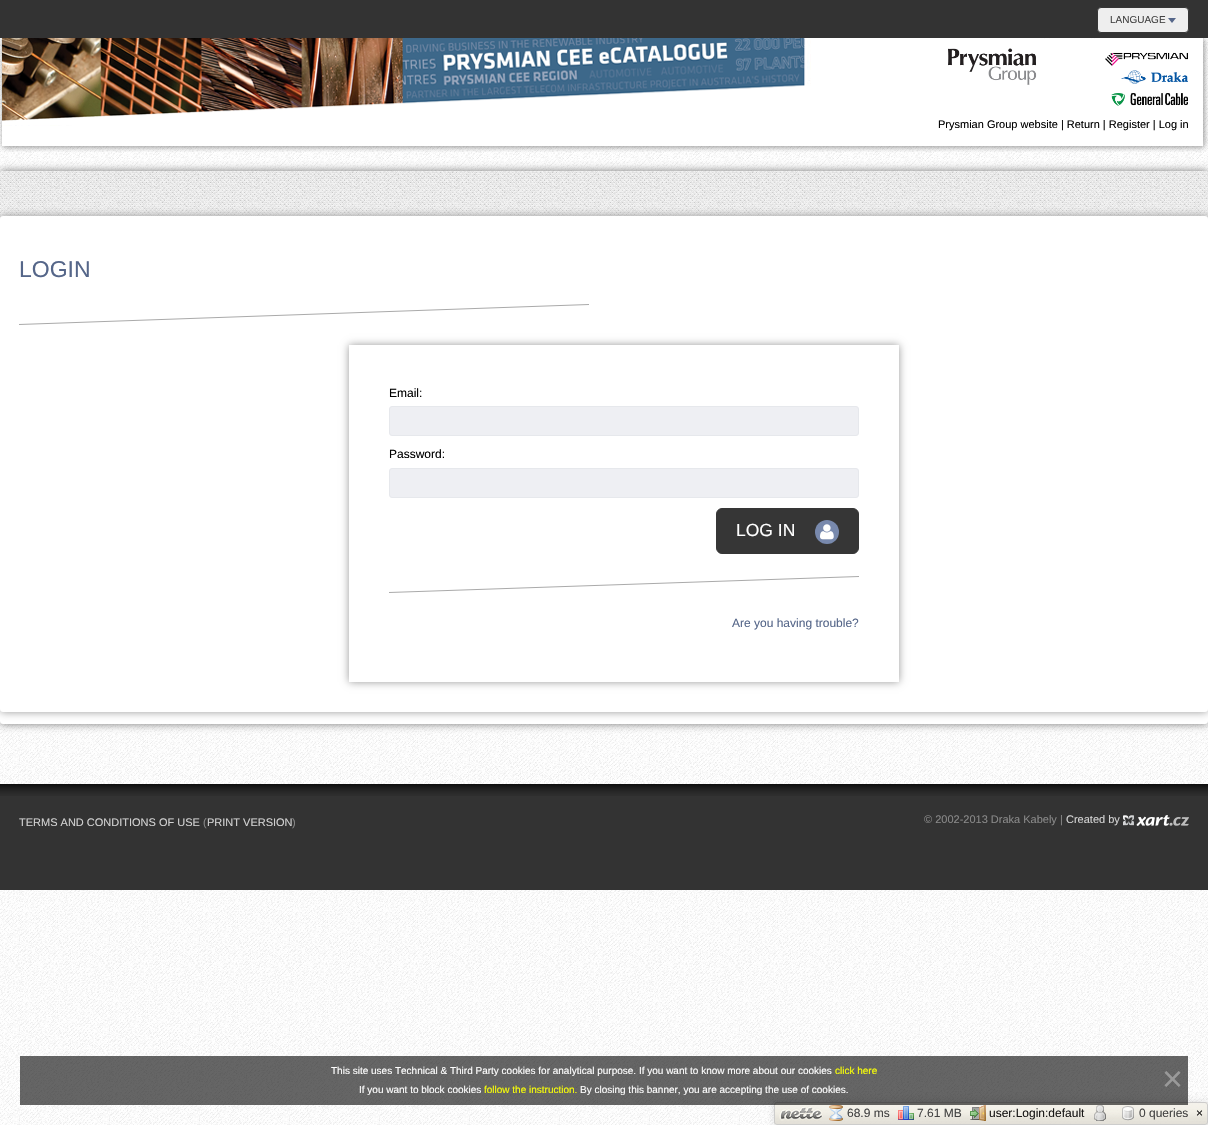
void draw(SkCanvas* canvas) {
	SkPaint paint;
	paint.setAntiAlias(true);
	auto svgPath = [&](const char* data, bool evenOdd = false) {
		SkPath result = *SkParsePath::FromSVGString(data);
		if (evenOdd) result.setFillType(SkPathFillType::kEvenOdd);
		return result;
	};
	canvas->clear(0xffffffff);
	canvas->drawImageRect(SkImages::DeferredFromEncodedData(SkData::MakeFromFileName("img1.png")), SkRect::MakeXYWH(0, 38, 1208, 1087), SkSamplingOptions());
	paint.setColor(0xff333333);
	canvas->drawRect(SkRect::MakeXYWH(0, 0, 1208, 38), paint);
	paint.setColor(0xffeeeeee);
	canvas->drawRoundRect(SkRect::MakeXYWH(1097.5, 7.5, 91, 25), 3.5, 3.5, paint);
	paint.setStroke(true);
	paint.setStrokeWidth(1);
	paint.setColor(0xff363636);
	canvas->drawRoundRect(SkRect::MakeXYWH(1097.5, 7.5, 91, 25), 3.5, 3.5, paint);
	SkFont f1(fontMgr->matchFamilyStyle("Liberation Sans", SkFontStyle::Normal()), 10);
	f1.setSubpixel(true);
	paint.setStroke(false);
	paint.setColor(0xff434343);
	canvas->drawString("LANGUAGE", 1110, 23, f1, paint);
	paint.setColor(0xff556689);
	canvas->drawPath(svgPath("M1168 18H1176L1172 23Z"), paint);
	canvas->drawImageRect(SkImages::DeferredFromEncodedData(SkData::MakeFromFileName("img2.png")), SkRect::MakeXYWH(0, 38, 1208, 114), SkSamplingOptions());
	canvas->drawImageRect(SkImages::DeferredFromEncodedData(SkData::MakeFromFileName("img3.png")), SkRect::MakeXYWH(948, 48, 240, 58), SkSamplingOptions());
	SkFont f2(fontMgr->matchFamilyStyle("Liberation Sans", SkFontStyle::Normal()), 11);
	f2.setSubpixel(true);
	paint.setColor(0xff000000);
	canvas->drawString("Prysmian Group website | Return | Register | Log in", 938, 128, f2, paint);
	paint.setColor(0xff777777);
	paint.setMaskFilter(SkMaskFilter::MakeBlur(kNormal_SkBlurStyle, 4));
	canvas->drawRoundRect(SkRect::MakeXYWH(0, 171, 1208, 553), 3, 3, paint);
	paint.setMaskFilter(nullptr);
	paint.setColor(0xffffffff);
	canvas->drawRoundRect(SkRect::MakeXYWH(0, 171, 1208, 553), 3, 3, paint);
	canvas->drawImageRect(SkImages::DeferredFromEncodedData(SkData::MakeFromFileName("img4.png")), SkRect::MakeXYWH(0, 171, 1208, 48), SkSamplingOptions());
	paint.setColor(0xff999999);
	paint.setMaskFilter(SkMaskFilter::MakeBlur(kNormal_SkBlurStyle, 4));
	canvas->drawRoundRect(SkRect::MakeXYWH(0, 216, 1208, 496), 3, 3, paint);
	paint.setMaskFilter(nullptr);
	paint.setColor(0xffffffff);
	canvas->drawRoundRect(SkRect::MakeXYWH(0, 216, 1208, 496), 3, 3, paint);
	SkFont f3(fontMgr->matchFamilyStyle("Liberation Sans", SkFontStyle::Normal()), 23);
	f3.setSubpixel(true);
	paint.setColor(0xff556689);
	canvas->drawString("LOGIN", 19, 277, f3, paint);
	paint.setColor(0xffaaaaaa);
	canvas->drawPath(svgPath("M19 324L589 304V305L19 325Z"), paint);
	canvas->save();
	canvas->clipPath(svgPath("M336 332H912V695H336ZM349 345H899V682H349Z", true), true);
	paint.setColor(0xff999999);
	paint.setMaskFilter(SkMaskFilter::MakeBlur(kNormal_SkBlurStyle, 4));
	canvas->drawRect(SkRect::MakeXYWH(349, 345, 550, 337), paint);
	paint.setMaskFilter(nullptr);
	canvas->restore();
	SkFont f4(fontMgr->matchFamilyStyle("Liberation Sans", SkFontStyle::Normal()), 12);
	f4.setSubpixel(true);
	paint.setColor(0xff000000);
	canvas->drawString("Email:", 389, 397, f4, paint);
	paint.setColor(0xffeeeff3);
	canvas->drawRoundRect(SkRect::MakeXYWH(389.5, 406.5, 469, 29), 2.5, 2.5, paint);
	paint.setStroke(true);
	paint.setColor(0xffe6e8ec);
	canvas->drawRoundRect(SkRect::MakeXYWH(389.5, 406.5, 469, 29), 2.5, 2.5, paint);
	paint.setStroke(false);
	paint.setColor(0xff000000);
	canvas->drawString("Password:", 389, 458, f4, paint);
	paint.setColor(0xffeeeff3);
	canvas->drawRoundRect(SkRect::MakeXYWH(389.5, 468.5, 469, 29), 2.5, 2.5, paint);
	paint.setStroke(true);
	paint.setColor(0xffe6e8ec);
	canvas->drawRoundRect(SkRect::MakeXYWH(389.5, 468.5, 469, 29), 2.5, 2.5, paint);
	paint.setStroke(false);
	paint.setColor(0xff363636);
	canvas->drawRoundRect(SkRect::MakeXYWH(716.5, 508.5, 142, 45), 5.5, 5.5, paint);
	paint.setStroke(true);
	canvas->drawRoundRect(SkRect::MakeXYWH(716.5, 508.5, 142, 45), 5.5, 5.5, paint);
	SkFont f5(fontMgr->matchFamilyStyle("Liberation Sans", SkFontStyle::Normal()), 17.5);
	f5.setSubpixel(true);
	paint.setStroke(false);
	paint.setColor(0xffffffff);
	canvas->drawString("LOG IN", 736, 536, f5, paint);
	paint.setColor(0xff7889ad);
	canvas->drawCircle(827, 532, 12, paint);
	canvas->drawImageRect(SkImages::DeferredFromEncodedData(SkData::MakeFromFileName("img5.png")), SkRect::MakeXYWH(820, 524, 14, 16), SkSamplingOptions());
	paint.setColor(0xffaaaaaa);
	canvas->drawPath(svgPath("M389 592L859 576V577L389 593Z"), paint);
	paint.setColor(0xff556689);
	canvas->drawString("Are you having trouble?", 732, 627, f4, paint);
	paint.setColor(0xff333333);
	canvas->drawRect(SkRect::MakeXYWH(0, 796, 1208, 94), paint);
	canvas->drawImageRect(SkImages::DeferredFromEncodedData(SkData::MakeFromFileName("img6.png")), SkRect::MakeXYWH(0, 784, 1208, 12), SkSamplingOptions());
	paint.setColor(0xffd2d2d2);
	canvas->drawString("TERMS AND CONDITIONS OF USE", 19, 826, f2, paint);
	paint.setColor(0xff888888);
	canvas->drawString("(", 203, 826, f2, paint);
	paint.setColor(0xffd2d2d2);
	canvas->drawString("PRINT VERSION", 207, 826, f2, paint);
	paint.setColor(0xff888888);
	canvas->drawString(")", 292, 826, f2, paint);
	canvas->drawString("© 2002-2013 Draka Kabely |", 924, 823, f2, paint);
	paint.setColor(0xffd2d2d2);
	canvas->drawString("Created by", 1066, 823, f2, paint);
	canvas->drawImageRect(SkImages::DeferredFromEncodedData(SkData::MakeFromFileName("img7.png")), SkRect::MakeXYWH(1123, 815, 66, 11), SkSamplingOptions());
	canvas->save();
	canvas->clipPath(svgPath("M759 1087H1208V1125H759ZM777 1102H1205C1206.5 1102 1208 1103.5 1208 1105V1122C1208 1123.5 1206.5 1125 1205 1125H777C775.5 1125 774 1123.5 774 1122V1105C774 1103.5 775.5 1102 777 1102Z", true), true);
	paint.setColor(0x24000000);
	paint.setMaskFilter(SkMaskFilter::MakeBlur(kNormal_SkBlurStyle, 5));
	canvas->drawRoundRect(SkRect::MakeXYWH(775, 1103, 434, 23), 3, 3, paint);
	paint.setMaskFilter(nullptr);
	canvas->restore();
	canvas->drawImageRect(SkImages::DeferredFromEncodedData(SkData::MakeFromFileName("img8.png")), SkRect::MakeXYWH(774, 1102, 434, 23), SkSamplingOptions());
	paint.setStroke(true);
	paint.setColor(0xe6c9c9c9);
	canvas->drawRoundRect(SkRect::MakeXYWH(774.5, 1102.5, 433, 22), 2.5, 2.5, paint);
	paint.setStroke(false);
	paint.setColor(0x99000000);
	canvas->drawRect(SkRect::MakeXYWH(20, 1056, 1168, 49), paint);
	paint.setColor(0xffffffff);
	canvas->drawString("This site uses Technical & Third Party cookies for analytical purpose. If you want to know more about our cookies", 331, 1074, f1, paint);
	paint.setColor(0xfff9ff07);
	canvas->drawString("click here", 835, 1074, f1, paint);
	SkFont f6(fontMgr->matchFamilyStyle("Liberation Sans", SkFontStyle::Normal()), 36);
	f6.setSubpixel(true);
	paint.setColor(0xff999999);
	canvas->drawString("×", 1162, 1091, f6, paint);
	paint.setColor(0xffffffff);
	canvas->drawString("If you want to block cookies", 359, 1093, f1, paint);
	paint.setColor(0xfff9ff07);
	canvas->drawString("follow the instruction.", 484, 1093, f1, paint);
	paint.setColor(0xffffffff);
	canvas->drawString("By closing this banner, you are accepting the use of cookies.", 580, 1093, f1, paint);
	canvas->drawImageRect(SkImages::DeferredFromEncodedData(SkData::MakeFromFileName("img9.png")), SkRect::MakeXYWH(779, 1106, 44, 15), SkSamplingOptions());
	canvas->drawImageRect(SkImages::DeferredFromEncodedData(SkData::MakeFromFileName("img10.png")), SkRect::MakeXYWH(829, 1105, 14, 16), SkSamplingOptions());
	paint.setColor(0xff434343);
	canvas->drawString("68.9 ms", 847, 1117, f4, paint);
	canvas->drawImageRect(SkImages::DeferredFromEncodedData(SkData::MakeFromFileName("img11.png")), SkRect::MakeXYWH(898, 1106, 16, 14), SkSamplingOptions());
	canvas->drawString("7.61 MB", 917, 1117, f4, paint);
	canvas->drawImageRect(SkImages::DeferredFromEncodedData(SkData::MakeFromFileName("img12.png")), SkRect::MakeXYWH(970, 1105, 16, 16), SkSamplingOptions());
	paint.setColor(0xff181716);
	canvas->drawString("user:Login:default", 989, 1117, f4, paint);
	canvas->drawImageRect(SkImages::DeferredFromEncodedData(SkData::MakeFromFileName("img13.png")), SkRect::MakeXYWH(1094, 1105, 12, 16), SkSamplingOptions());
	canvas->drawImageRect(SkImages::DeferredFromEncodedData(SkData::MakeFromFileName("img14.png")), SkRect::MakeXYWH(1122, 1106, 12, 15), SkSamplingOptions());
	paint.setColor(0xff434343);
	canvas->drawString("0 queries", 1139, 1117, f4, paint);
	paint.setColor(0xff181716);
	canvas->drawString("×", 1196, 1117, f4, paint);
}
